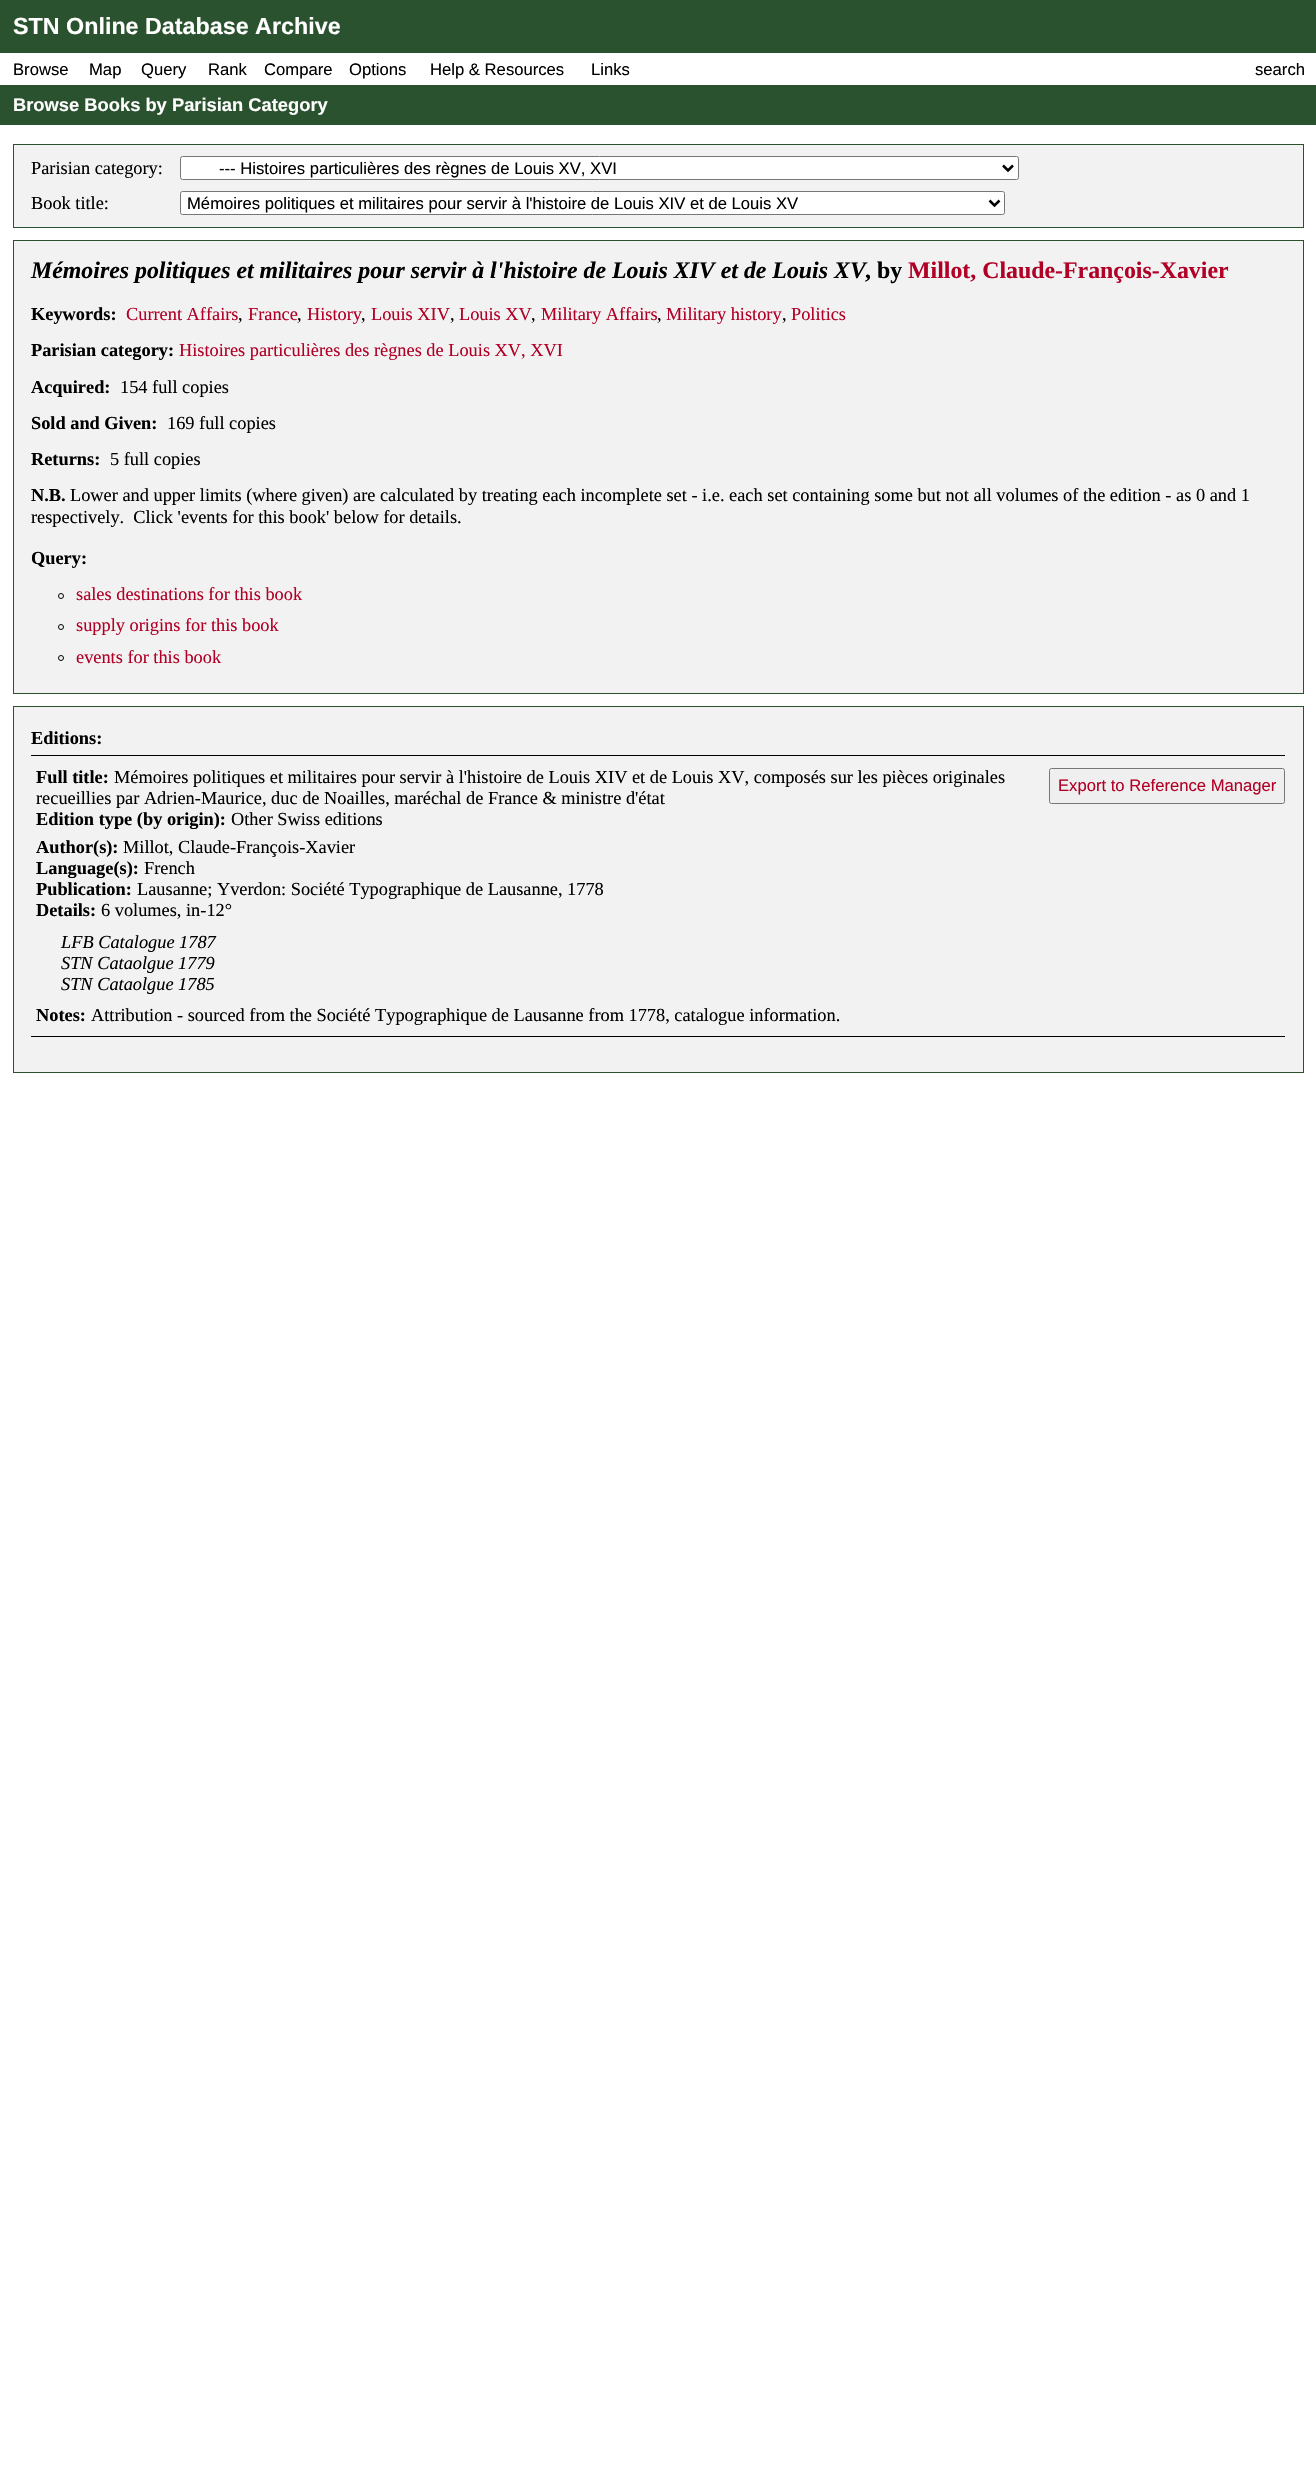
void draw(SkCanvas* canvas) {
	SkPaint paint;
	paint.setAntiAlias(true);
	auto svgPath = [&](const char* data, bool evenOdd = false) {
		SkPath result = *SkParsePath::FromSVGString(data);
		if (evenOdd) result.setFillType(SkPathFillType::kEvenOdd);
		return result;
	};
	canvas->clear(0xffffffff);
	paint.setColor(0xff2b522e);
	canvas->drawRect(SkRect::MakeXYWH(0, 0, 1316, 53), paint);
	SkFont f1(fontMgr->matchFamilyStyle("Liberation Sans", SkFontStyle::Bold()), 23.3);
	f1.setSubpixel(true);
	paint.setColor(0xffffffff);
	canvas->drawString("STN Online Database Archive", 13, 34, f1, paint);
	SkFont f2(fontMgr->matchFamilyStyle("Liberation Sans", SkFontStyle::Normal()), 16.65);
	f2.setSubpixel(true);
	paint.setColor(0xff000000);
	canvas->drawString("Browse", 13, 75, f2, paint);
	canvas->drawString("Map", 89, 75, f2, paint);
	canvas->drawString("Query", 141, 75, f2, paint);
	canvas->drawString("Rank", 208, 75, f2, paint);
	canvas->drawString("Compare", 264, 75, f2, paint);
	canvas->drawString("Options", 349, 75, f2, paint);
	canvas->drawString("Help & Resources", 430, 75, f2, paint);
	canvas->drawString("Links", 591, 75, f2, paint);
	canvas->drawString("search", 1255, 75, f2, paint);
	paint.setColor(0xff2b522e);
	canvas->drawRect(SkRect::MakeXYWH(0, 85, 1316, 40), paint);
	SkFont f3(fontMgr->matchFamilyStyle("Liberation Sans", SkFontStyle::Bold()), 18.33);
	f3.setSubpixel(true);
	paint.setColor(0xffffffff);
	canvas->drawString("Browse Books by Parisian Category", 13, 111, f3, paint);
	paint.setColor(0xfff2f2f2);
	canvas->drawRect(SkRect::MakeXYWH(13.5, 144.5, 1290, 83), paint);
	paint.setStroke(true);
	paint.setStrokeWidth(1);
	paint.setColor(0xff2b522e);
	canvas->drawRect(SkRect::MakeXYWH(13.5, 144.5, 1290, 83), paint);
	SkFont f4(fontMgr->matchFamilyStyle("Liberation Serif", SkFontStyle::Normal()), 18.33);
	f4.setSubpixel(true);
	paint.setStroke(false);
	paint.setColor(0xff000000);
	canvas->drawString("Parisian category:", 31, 174, f4, paint);
	paint.setColor(0xffffffff);
	canvas->drawRoundRect(SkRect::MakeXYWH(180.5, 156.5, 838, 23), 2, 2, paint);
	paint.setStroke(true);
	paint.setColor(0xff767676);
	canvas->drawRoundRect(SkRect::MakeXYWH(180.5, 156.5, 838, 23), 2, 2, paint);
	paint.setStrokeWidth(2.5);
	paint.setColor(0xff000000);
	canvas->drawPath(svgPath("M1003 165.5L1008 170.5L1013 165.5"), paint);
	paint.setStroke(false);
	canvas->drawString("--- Histoires particulières des règnes de Louis XV, XVI", 219, 174, f2, paint);
	canvas->drawString("Book title:", 31, 209, f4, paint);
	paint.setColor(0xffffffff);
	canvas->drawRoundRect(SkRect::MakeXYWH(180.5, 191.5, 824, 23), 2, 2, paint);
	paint.setStroke(true);
	paint.setStrokeWidth(1);
	paint.setColor(0xff767676);
	canvas->drawRoundRect(SkRect::MakeXYWH(180.5, 191.5, 824, 23), 2, 2, paint);
	paint.setStrokeWidth(2.5);
	paint.setColor(0xff000000);
	canvas->drawPath(svgPath("M989.5 200.5L994.5 205.5L999.5 200.5"), paint);
	paint.setStroke(false);
	canvas->drawString("Mémoires politiques et militaires pour servir à l'histoire de Louis XIV et de Louis XV", 187, 209, f2, paint);
	paint.setColor(0xfff2f2f2);
	canvas->drawRect(SkRect::MakeXYWH(13.5, 240.5, 1290, 453), paint);
	paint.setStroke(true);
	paint.setStrokeWidth(1);
	paint.setColor(0xff2b522e);
	canvas->drawRect(SkRect::MakeXYWH(13.5, 240.5, 1290, 453), paint);
	SkFont f5(fontMgr->matchFamilyStyle("Liberation Serif", SkFontStyle::BoldItalic()), 23.85);
	f5.setSubpixel(true);
	paint.setStroke(false);
	paint.setColor(0xff000000);
	canvas->drawString("Mémoires politiques et militaires pour servir à l'histoire de Louis XIV et de Louis XV", 31, 278, f5, paint);
	SkFont f6(fontMgr->matchFamilyStyle("Liberation Serif", SkFontStyle::Bold()), 23.85);
	f6.setSubpixel(true);
	canvas->drawString(", by", 865, 278, f6, paint);
	paint.setColor(0xffb10026);
	canvas->drawString("Millot, Claude-François-Xavier", 908, 278, f6, paint);
	SkFont f7(fontMgr->matchFamilyStyle("Liberation Serif", SkFontStyle::Bold()), 18.33);
	f7.setSubpixel(true);
	paint.setColor(0xff000000);
	canvas->drawString("Keywords:", 31, 320, f7, paint);
	paint.setColor(0xffb10026);
	canvas->drawString("Current Affairs", 126, 320, f4, paint);
	paint.setColor(0xff000000);
	canvas->drawString(",", 238, 320, f4, paint);
	paint.setColor(0xffb10026);
	canvas->drawString("France", 248, 320, f4, paint);
	paint.setColor(0xff000000);
	canvas->drawString(",", 297, 320, f4, paint);
	paint.setColor(0xffb10026);
	canvas->drawString("History", 307, 320, f4, paint);
	paint.setColor(0xff000000);
	canvas->drawString(",", 361, 320, f4, paint);
	paint.setColor(0xffb10026);
	canvas->drawString("Louis XIV", 371, 320, f4, paint);
	paint.setColor(0xff000000);
	canvas->drawString(",", 450, 320, f4, paint);
	paint.setColor(0xffb10026);
	canvas->drawString("Louis XV", 459, 320, f4, paint);
	paint.setColor(0xff000000);
	canvas->drawString(",", 531, 320, f4, paint);
	paint.setColor(0xffb10026);
	canvas->drawString("Military Affairs", 541, 320, f4, paint);
	paint.setColor(0xff000000);
	canvas->drawString(",", 657, 320, f4, paint);
	paint.setColor(0xffb10026);
	canvas->drawString("Military history", 666, 320, f4, paint);
	paint.setColor(0xff000000);
	canvas->drawString(",", 782, 320, f4, paint);
	paint.setColor(0xffb10026);
	canvas->drawString("Politics", 791, 320, f4, paint);
	paint.setColor(0xff000000);
	canvas->drawString("Parisian category:", 31, 356, f7, paint);
	paint.setColor(0xffb10026);
	canvas->drawString("Histoires particulières des règnes de Louis XV, XVI", 179, 356, f4, paint);
	paint.setColor(0xff000000);
	canvas->drawString("Acquired:", 31, 393, f7, paint);
	canvas->drawString("154 full copies", 120, 393, f4, paint);
	canvas->drawString("Sold and Given:", 31, 429, f7, paint);
	canvas->drawString("169 full copies", 167, 429, f4, paint);
	canvas->drawString("Returns:", 31, 465, f7, paint);
	canvas->drawString("5 full copies", 110, 465, f4, paint);
	canvas->drawString("N.B.", 31, 501, f7, paint);
	canvas->drawString("Lower and upper limits (where given) are calculated by treating each incomplete set - i.e. each set containing some but not all volumes of the edition - as 0 and 1", 70, 501, f4, paint);
	canvas->drawString("respectively.  Click 'events for this book' below for details.", 31, 523, f4, paint);
	canvas->drawString("Query:", 31, 564, f7, paint);
	paint.setStroke(true);
	canvas->drawCircle(61, 596, 2.5, paint);
	paint.setStroke(false);
	paint.setColor(0xffb10026);
	canvas->drawString("sales destinations for this book", 76, 600, f4, paint);
	paint.setStroke(true);
	paint.setColor(0xff000000);
	canvas->drawCircle(61, 627, 2.5, paint);
	paint.setStroke(false);
	paint.setColor(0xffb10026);
	canvas->drawString("supply origins for this book", 76, 631, f4, paint);
	paint.setStroke(true);
	paint.setColor(0xff000000);
	canvas->drawCircle(61, 658, 2.5, paint);
	paint.setStroke(false);
	paint.setColor(0xffb10026);
	canvas->drawString("events for this book", 76, 663, f4, paint);
	paint.setColor(0xfff2f2f2);
	canvas->drawRect(SkRect::MakeXYWH(13.5, 706.5, 1290, 366), paint);
	paint.setStroke(true);
	paint.setColor(0xff2b522e);
	canvas->drawRect(SkRect::MakeXYWH(13.5, 706.5, 1290, 366), paint);
	paint.setStroke(false);
	paint.setColor(0xff000000);
	canvas->drawString("Editions:", 31, 744, f7, paint);
	canvas->drawRect(SkRect::MakeXYWH(31, 755, 1254, 1), paint);
	canvas->drawRect(SkRect::MakeXYWH(31, 1036, 1254, 1), paint);
	canvas->drawString("Full title:", 36, 783, f7, paint);
	canvas->drawString("Mémoires politiques et militaires pour servir à l'histoire de Louis XIV et de Louis XV, composés sur les pièces originales", 114, 783, f4, paint);
	canvas->drawString("recueillies par Adrien-Maurice, duc de Noailles, maréchal de France & ministre d'état", 36, 804, f4, paint);
	canvas->drawString("Edition type (by origin):", 36, 825, f7, paint);
	canvas->drawString("Other Swiss editions", 231, 825, f4, paint);
	canvas->drawString("Author(s):", 36, 853, f7, paint);
	canvas->drawString("Millot, Claude-François-Xavier", 123, 853, f4, paint);
	canvas->drawString("Language(s):", 36, 874, f7, paint);
	canvas->drawString("French", 144, 874, f4, paint);
	canvas->drawString("Publication:", 36, 895, f7, paint);
	canvas->drawString("Lausanne; Yverdon: Société Typographique de Lausanne, 1778", 137, 895, f4, paint);
	canvas->drawString("Details:", 36, 916, f7, paint);
	canvas->drawString("6 volumes, in-12°", 101, 916, f4, paint);
	SkFont f8(fontMgr->matchFamilyStyle("Liberation Serif", SkFontStyle::Italic()), 18.33);
	f8.setSubpixel(true);
	canvas->drawString("LFB Catalogue 1787", 61, 948, f8, paint);
	canvas->drawString("STN Cataolgue 1779", 61, 969, f8, paint);
	canvas->drawString("STN Cataolgue 1785", 61, 990, f8, paint);
	canvas->drawString("Notes:", 36, 1021, f7, paint);
	canvas->drawString("Attribution - sourced from the Société Typographique de Lausanne from 1778, catalogue information.", 91, 1021, f4, paint);
	paint.setColor(0xffefefef);
	canvas->drawRoundRect(SkRect::MakeXYWH(1049.5, 768.5, 235, 35), 2, 2, paint);
	paint.setStroke(true);
	paint.setColor(0xff767676);
	canvas->drawRoundRect(SkRect::MakeXYWH(1049.5, 768.5, 235, 35), 2, 2, paint);
	paint.setStroke(false);
	paint.setColor(0xffb10026);
	canvas->drawString("Export to Reference Manager", 1058, 791, f2, paint);
}
